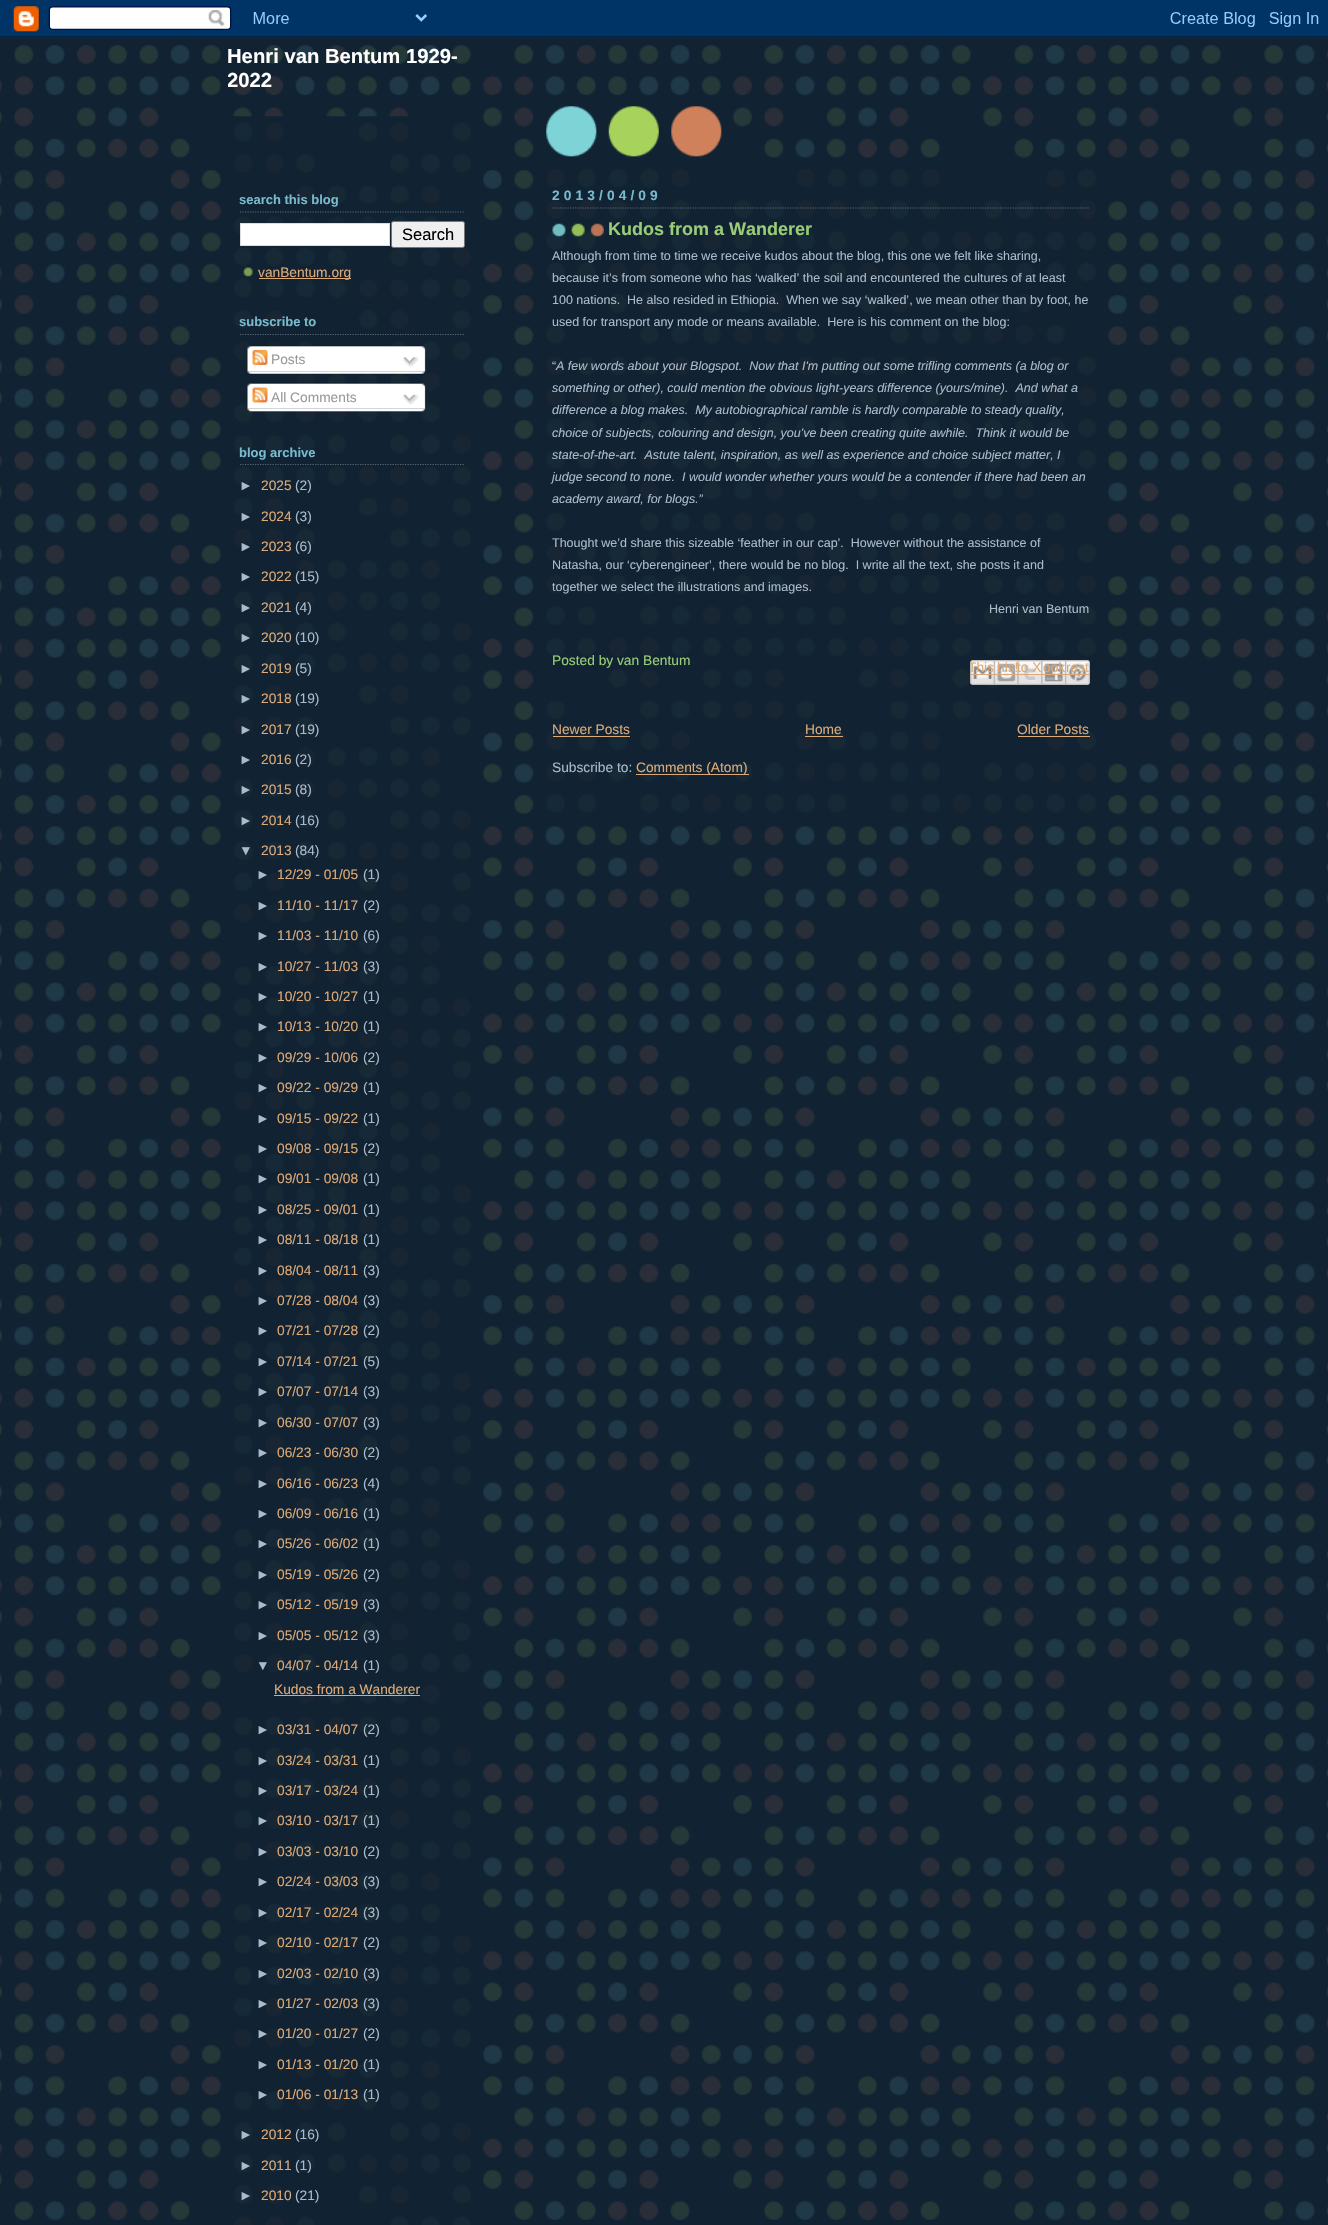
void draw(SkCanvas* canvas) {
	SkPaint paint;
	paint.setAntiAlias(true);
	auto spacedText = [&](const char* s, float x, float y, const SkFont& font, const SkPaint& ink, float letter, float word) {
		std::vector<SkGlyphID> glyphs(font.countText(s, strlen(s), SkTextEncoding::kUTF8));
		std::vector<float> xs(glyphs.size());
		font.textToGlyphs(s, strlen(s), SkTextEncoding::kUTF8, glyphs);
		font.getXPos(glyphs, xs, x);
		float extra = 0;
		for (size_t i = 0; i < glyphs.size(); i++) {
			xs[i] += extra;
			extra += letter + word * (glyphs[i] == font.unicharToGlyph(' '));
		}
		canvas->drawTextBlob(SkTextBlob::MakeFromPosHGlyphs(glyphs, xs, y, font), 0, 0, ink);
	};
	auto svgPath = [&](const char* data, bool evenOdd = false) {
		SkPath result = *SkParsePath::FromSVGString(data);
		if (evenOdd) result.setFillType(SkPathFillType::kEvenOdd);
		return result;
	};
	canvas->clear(0xff112233);
	canvas->drawImageRect(SkImages::DeferredFromEncodedData(SkData::MakeFromFileName("img1.png")), SkRect::MakeXYWH(0, 36, 1328, 2184), SkSamplingOptions());
	canvas->drawImageRect(SkImages::DeferredFromEncodedData(SkData::MakeFromFileName("img2.png")), SkRect::MakeXYWH(0, 0, 1328, 38), SkSamplingOptions());
	canvas->drawImageRect(SkImages::DeferredFromEncodedData(SkData::MakeFromFileName("img3.png")), SkRect::MakeXYWH(545, 106, 177, 52), SkSamplingOptions());
	SkFont f1(fontMgr->matchFamilyStyle("Liberation Sans", SkFontStyle::Bold()), 20.25);
	f1.setSubpixel(true);
	paint.setColor(0xffffffff);
	canvas->drawString("Henri van Bentum 1929-", 227, 63, f1, paint);
	canvas->save();
	canvas->clipRect(SkRect::MakeXYWH(228, 38, 250, 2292));
	canvas->drawString("2022", 227, 87, f1, paint);
	canvas->restore();
	canvas->drawImageRect(SkImages::DeferredFromEncodedData(SkData::MakeFromFileName("img4.png")), SkRect::MakeXYWH(233, 116, 238, 2109), SkSamplingOptions());
	paint.setStroke(true);
	paint.setStrokeWidth(1.2);
	paint.setColor(0xff556677);
	paint.setPathEffect(SkDashPathEffect::Make({{1.25f, 1.25f}}, 0));
	canvas->drawPath(svgPath("M240 212H465"), paint);
	paint.setPathEffect(nullptr);
	SkFont f2(fontMgr->matchFamilyStyle("Liberation Sans", SkFontStyle::Bold()), 13);
	f2.setSubpixel(true);
	paint.setStroke(false);
	paint.setColor(0xff77bbcc);
	canvas->drawString("search this blog", 239, 204, f2, paint);
	paint.setColor(0xffffffff);
	canvas->drawRect(SkRect::MakeXYWH(240.5, 223.5, 149, 22), paint);
	paint.setStroke(true);
	paint.setStrokeWidth(1);
	paint.setColor(0xffdddddd);
	canvas->drawRect(SkRect::MakeXYWH(240.5, 223.5, 149, 22), paint);
	paint.setStroke(false);
	paint.setColor(0xffefefef);
	canvas->drawRoundRect(SkRect::MakeXYWH(391.5, 221.5, 73, 26), 2, 2, paint);
	paint.setStroke(true);
	paint.setColor(0xff767676);
	canvas->drawRoundRect(SkRect::MakeXYWH(391.5, 221.5, 73, 26), 2, 2, paint);
	SkFont f3(fontMgr->matchFamilyStyle("Liberation Sans", SkFontStyle::Normal()), 16.5);
	f3.setSubpixel(true);
	paint.setStroke(false);
	paint.setColor(0xff000000);
	canvas->drawString("Search", 402, 240, f3, paint);
	canvas->drawImageRect(SkImages::DeferredFromEncodedData(SkData::MakeFromFileName("img5.png")), SkRect::MakeXYWH(243, 267, 10, 10), SkSamplingOptions());
	paint.setColor(0xffddaa77);
	canvas->drawRect(SkRect::MakeXYWH(259, 278, 92, 1), paint);
	SkFont f4(fontMgr->matchFamilyStyle("Liberation Sans", SkFontStyle::Normal()), 13.75);
	f4.setSubpixel(true);
	canvas->drawString("vanBentum.org", 258, 277, f4, paint);
	paint.setStroke(true);
	paint.setStrokeWidth(1.2);
	paint.setColor(0xff556677);
	paint.setPathEffect(SkDashPathEffect::Make({{1.25f, 1.25f}}, 0));
	canvas->drawPath(svgPath("M240 334.5H465"), paint);
	paint.setPathEffect(nullptr);
	paint.setStroke(false);
	paint.setColor(0xff77bbcc);
	canvas->drawString("subscribe to", 239, 326, f2, paint);
	canvas->drawImageRect(SkImages::DeferredFromEncodedData(SkData::MakeFromFileName("img6.png")), SkRect::MakeXYWH(246, 345, 180, 27), SkSamplingOptions());
	canvas->drawImageRect(SkImages::DeferredFromEncodedData(SkData::MakeFromFileName("img7.png")), SkRect::MakeXYWH(252, 350, 16, 15), SkSamplingOptions());
	paint.setColor(0xff999999);
	canvas->drawString("Posts", 271, 364, f4, paint);
	canvas->drawImageRect(SkImages::DeferredFromEncodedData(SkData::MakeFromFileName("img8.png")), SkRect::MakeXYWH(402, 356, 17, 12), SkSamplingOptions());
	canvas->drawImageRect(SkImages::DeferredFromEncodedData(SkData::MakeFromFileName("img9.png")), SkRect::MakeXYWH(247, 371, 179, 4), SkSamplingOptions());
	canvas->drawImageRect(SkImages::DeferredFromEncodedData(SkData::MakeFromFileName("img10.png")), SkRect::MakeXYWH(246, 382, 180, 27), SkSamplingOptions());
	canvas->drawImageRect(SkImages::DeferredFromEncodedData(SkData::MakeFromFileName("img11.png")), SkRect::MakeXYWH(252, 387, 16, 16), SkSamplingOptions());
	canvas->drawString("All Comments", 271, 402, f4, paint);
	canvas->drawImageRect(SkImages::DeferredFromEncodedData(SkData::MakeFromFileName("img12.png")), SkRect::MakeXYWH(402, 394, 17, 11), SkSamplingOptions());
	canvas->drawImageRect(SkImages::DeferredFromEncodedData(SkData::MakeFromFileName("img13.png")), SkRect::MakeXYWH(247, 408, 179, 5), SkSamplingOptions());
	paint.setStroke(true);
	paint.setColor(0xff556677);
	paint.setPathEffect(SkDashPathEffect::Make({{1.25f, 1.25f}}, 0));
	canvas->drawPath(svgPath("M240 464.5H465"), paint);
	paint.setPathEffect(nullptr);
	paint.setStroke(false);
	paint.setColor(0xff77bbcc);
	canvas->drawString("blog archive", 239, 457, f2, paint);
	paint.setColor(0xffaabbcc);
	canvas->drawString("►", 239, 490, f4, paint);
	paint.setColor(0xffddaa77);
	canvas->drawString("2025", 261, 490, f4, paint);
	paint.setColor(0xffaabbcc);
	canvas->drawString("(2)", 295, 490, f4, paint);
	canvas->drawString("►", 239, 521, f4, paint);
	paint.setColor(0xffddaa77);
	canvas->drawString("2024", 261, 521, f4, paint);
	paint.setColor(0xffaabbcc);
	canvas->drawString("(3)", 295, 521, f4, paint);
	canvas->drawString("►", 239, 551, f4, paint);
	paint.setColor(0xffddaa77);
	canvas->drawString("2023", 261, 551, f4, paint);
	paint.setColor(0xffaabbcc);
	canvas->drawString("(6)", 295, 551, f4, paint);
	canvas->drawString("►", 239, 581, f4, paint);
	paint.setColor(0xffddaa77);
	canvas->drawString("2022", 261, 581, f4, paint);
	paint.setColor(0xffaabbcc);
	canvas->drawString("(15)", 295, 581, f4, paint);
	canvas->drawString("►", 239, 612, f4, paint);
	paint.setColor(0xffddaa77);
	canvas->drawString("2021", 261, 612, f4, paint);
	paint.setColor(0xffaabbcc);
	canvas->drawString("(4)", 295, 612, f4, paint);
	canvas->drawString("►", 239, 642, f4, paint);
	paint.setColor(0xffddaa77);
	canvas->drawString("2020", 261, 642, f4, paint);
	paint.setColor(0xffaabbcc);
	canvas->drawString("(10)", 295, 642, f4, paint);
	canvas->drawString("►", 239, 673, f4, paint);
	paint.setColor(0xffddaa77);
	canvas->drawString("2019", 261, 673, f4, paint);
	paint.setColor(0xffaabbcc);
	canvas->drawString("(5)", 295, 673, f4, paint);
	canvas->drawString("►", 239, 703, f4, paint);
	paint.setColor(0xffddaa77);
	canvas->drawString("2018", 261, 703, f4, paint);
	paint.setColor(0xffaabbcc);
	canvas->drawString("(19)", 295, 703, f4, paint);
	canvas->drawString("►", 239, 734, f4, paint);
	paint.setColor(0xffddaa77);
	canvas->drawString("2017", 261, 734, f4, paint);
	paint.setColor(0xffaabbcc);
	canvas->drawString("(19)", 295, 734, f4, paint);
	canvas->drawString("►", 239, 764, f4, paint);
	paint.setColor(0xffddaa77);
	canvas->drawString("2016", 261, 764, f4, paint);
	paint.setColor(0xffaabbcc);
	canvas->drawString("(2)", 295, 764, f4, paint);
	canvas->drawString("►", 239, 794, f4, paint);
	paint.setColor(0xffddaa77);
	canvas->drawString("2015", 261, 794, f4, paint);
	paint.setColor(0xffaabbcc);
	canvas->drawString("(8)", 295, 794, f4, paint);
	canvas->drawString("►", 239, 825, f4, paint);
	paint.setColor(0xffddaa77);
	canvas->drawString("2014", 261, 825, f4, paint);
	paint.setColor(0xffaabbcc);
	canvas->drawString("(16)", 295, 825, f4, paint);
	canvas->drawString("▼", 239, 855, f4, paint);
	paint.setColor(0xffddaa77);
	canvas->drawString("2013", 261, 855, f4, paint);
	paint.setColor(0xffaabbcc);
	canvas->drawString("(84)", 295, 855, f4, paint);
	canvas->drawString("►", 256, 879, f4, paint);
	paint.setColor(0xffddaa77);
	canvas->drawString("12/29 - 01/05", 277, 879, f4, paint);
	paint.setColor(0xffaabbcc);
	canvas->drawString("(1)", 363, 879, f4, paint);
	canvas->drawString("►", 256, 910, f4, paint);
	paint.setColor(0xffddaa77);
	canvas->drawString("11/10 - 11/17", 277, 910, f4, paint);
	paint.setColor(0xffaabbcc);
	canvas->drawString("(2)", 363, 910, f4, paint);
	canvas->drawString("►", 256, 940, f4, paint);
	paint.setColor(0xffddaa77);
	canvas->drawString("11/03 - 11/10", 277, 940, f4, paint);
	paint.setColor(0xffaabbcc);
	canvas->drawString("(6)", 363, 940, f4, paint);
	canvas->drawString("►", 256, 971, f4, paint);
	paint.setColor(0xffddaa77);
	canvas->drawString("10/27 - 11/03", 277, 971, f4, paint);
	paint.setColor(0xffaabbcc);
	canvas->drawString("(3)", 363, 971, f4, paint);
	canvas->drawString("►", 256, 1001, f4, paint);
	paint.setColor(0xffddaa77);
	canvas->drawString("10/20 - 10/27", 277, 1001, f4, paint);
	paint.setColor(0xffaabbcc);
	canvas->drawString("(1)", 363, 1001, f4, paint);
	canvas->drawString("►", 256, 1031, f4, paint);
	paint.setColor(0xffddaa77);
	canvas->drawString("10/13 - 10/20", 277, 1031, f4, paint);
	paint.setColor(0xffaabbcc);
	canvas->drawString("(1)", 363, 1031, f4, paint);
	canvas->drawString("►", 256, 1062, f4, paint);
	paint.setColor(0xffddaa77);
	canvas->drawString("09/29 - 10/06", 277, 1062, f4, paint);
	paint.setColor(0xffaabbcc);
	canvas->drawString("(2)", 363, 1062, f4, paint);
	canvas->drawString("►", 256, 1092, f4, paint);
	paint.setColor(0xffddaa77);
	canvas->drawString("09/22 - 09/29", 277, 1092, f4, paint);
	paint.setColor(0xffaabbcc);
	canvas->drawString("(1)", 363, 1092, f4, paint);
	canvas->drawString("►", 256, 1123, f4, paint);
	paint.setColor(0xffddaa77);
	canvas->drawString("09/15 - 09/22", 277, 1123, f4, paint);
	paint.setColor(0xffaabbcc);
	canvas->drawString("(1)", 363, 1123, f4, paint);
	canvas->drawString("►", 256, 1153, f4, paint);
	paint.setColor(0xffddaa77);
	canvas->drawString("09/08 - 09/15", 277, 1153, f4, paint);
	paint.setColor(0xffaabbcc);
	canvas->drawString("(2)", 363, 1153, f4, paint);
	canvas->drawString("►", 256, 1183, f4, paint);
	paint.setColor(0xffddaa77);
	canvas->drawString("09/01 - 09/08", 277, 1183, f4, paint);
	paint.setColor(0xffaabbcc);
	canvas->drawString("(1)", 363, 1183, f4, paint);
	canvas->drawString("►", 256, 1214, f4, paint);
	paint.setColor(0xffddaa77);
	canvas->drawString("08/25 - 09/01", 277, 1214, f4, paint);
	paint.setColor(0xffaabbcc);
	canvas->drawString("(1)", 363, 1214, f4, paint);
	canvas->drawString("►", 256, 1244, f4, paint);
	paint.setColor(0xffddaa77);
	canvas->drawString("08/11 - 08/18", 277, 1244, f4, paint);
	paint.setColor(0xffaabbcc);
	canvas->drawString("(1)", 363, 1244, f4, paint);
	canvas->drawString("►", 256, 1275, f4, paint);
	paint.setColor(0xffddaa77);
	canvas->drawString("08/04 - 08/11", 277, 1275, f4, paint);
	paint.setColor(0xffaabbcc);
	canvas->drawString("(3)", 363, 1275, f4, paint);
	canvas->drawString("►", 256, 1305, f4, paint);
	paint.setColor(0xffddaa77);
	canvas->drawString("07/28 - 08/04", 277, 1305, f4, paint);
	paint.setColor(0xffaabbcc);
	canvas->drawString("(3)", 363, 1305, f4, paint);
	canvas->drawString("►", 256, 1335, f4, paint);
	paint.setColor(0xffddaa77);
	canvas->drawString("07/21 - 07/28", 277, 1335, f4, paint);
	paint.setColor(0xffaabbcc);
	canvas->drawString("(2)", 363, 1335, f4, paint);
	canvas->drawString("►", 256, 1366, f4, paint);
	paint.setColor(0xffddaa77);
	canvas->drawString("07/14 - 07/21", 277, 1366, f4, paint);
	paint.setColor(0xffaabbcc);
	canvas->drawString("(5)", 363, 1366, f4, paint);
	canvas->drawString("►", 256, 1396, f4, paint);
	paint.setColor(0xffddaa77);
	canvas->drawString("07/07 - 07/14", 277, 1396, f4, paint);
	paint.setColor(0xffaabbcc);
	canvas->drawString("(3)", 363, 1396, f4, paint);
	canvas->drawString("►", 256, 1427, f4, paint);
	paint.setColor(0xffddaa77);
	canvas->drawString("06/30 - 07/07", 277, 1427, f4, paint);
	paint.setColor(0xffaabbcc);
	canvas->drawString("(3)", 363, 1427, f4, paint);
	canvas->drawString("►", 256, 1457, f4, paint);
	paint.setColor(0xffddaa77);
	canvas->drawString("06/23 - 06/30", 277, 1457, f4, paint);
	paint.setColor(0xffaabbcc);
	canvas->drawString("(2)", 363, 1457, f4, paint);
	canvas->drawString("►", 256, 1488, f4, paint);
	paint.setColor(0xffddaa77);
	canvas->drawString("06/16 - 06/23", 277, 1488, f4, paint);
	paint.setColor(0xffaabbcc);
	canvas->drawString("(4)", 363, 1488, f4, paint);
	canvas->drawString("►", 256, 1518, f4, paint);
	paint.setColor(0xffddaa77);
	canvas->drawString("06/09 - 06/16", 277, 1518, f4, paint);
	paint.setColor(0xffaabbcc);
	canvas->drawString("(1)", 363, 1518, f4, paint);
	canvas->drawString("►", 256, 1548, f4, paint);
	paint.setColor(0xffddaa77);
	canvas->drawString("05/26 - 06/02", 277, 1548, f4, paint);
	paint.setColor(0xffaabbcc);
	canvas->drawString("(1)", 363, 1548, f4, paint);
	canvas->drawString("►", 256, 1579, f4, paint);
	paint.setColor(0xffddaa77);
	canvas->drawString("05/19 - 05/26", 277, 1579, f4, paint);
	paint.setColor(0xffaabbcc);
	canvas->drawString("(2)", 363, 1579, f4, paint);
	canvas->drawString("►", 256, 1609, f4, paint);
	paint.setColor(0xffddaa77);
	canvas->drawString("05/12 - 05/19", 277, 1609, f4, paint);
	paint.setColor(0xffaabbcc);
	canvas->drawString("(3)", 363, 1609, f4, paint);
	canvas->drawString("►", 256, 1640, f4, paint);
	paint.setColor(0xffddaa77);
	canvas->drawString("05/05 - 05/12", 277, 1640, f4, paint);
	paint.setColor(0xffaabbcc);
	canvas->drawString("(3)", 363, 1640, f4, paint);
	canvas->drawString("▼", 256, 1670, f4, paint);
	paint.setColor(0xffddaa77);
	canvas->drawString("04/07 - 04/14", 277, 1670, f4, paint);
	paint.setColor(0xffaabbcc);
	canvas->drawString("(1)", 363, 1670, f4, paint);
	paint.setColor(0xffddaa77);
	canvas->drawString("Kudos from a Wanderer", 274, 1694, f4, paint);
	canvas->drawRect(SkRect::MakeXYWH(274, 1695, 146, 1), paint);
	paint.setColor(0xffaabbcc);
	canvas->drawString("►", 256, 1734, f4, paint);
	paint.setColor(0xffddaa77);
	canvas->drawString("03/31 - 04/07", 277, 1734, f4, paint);
	paint.setColor(0xffaabbcc);
	canvas->drawString("(2)", 363, 1734, f4, paint);
	canvas->drawString("►", 256, 1765, f4, paint);
	paint.setColor(0xffddaa77);
	canvas->drawString("03/24 - 03/31", 277, 1765, f4, paint);
	paint.setColor(0xffaabbcc);
	canvas->drawString("(1)", 363, 1765, f4, paint);
	canvas->drawString("►", 256, 1795, f4, paint);
	paint.setColor(0xffddaa77);
	canvas->drawString("03/17 - 03/24", 277, 1795, f4, paint);
	paint.setColor(0xffaabbcc);
	canvas->drawString("(1)", 363, 1795, f4, paint);
	canvas->drawString("►", 256, 1825, f4, paint);
	paint.setColor(0xffddaa77);
	canvas->drawString("03/10 - 03/17", 277, 1825, f4, paint);
	paint.setColor(0xffaabbcc);
	canvas->drawString("(1)", 363, 1825, f4, paint);
	canvas->drawString("►", 256, 1856, f4, paint);
	paint.setColor(0xffddaa77);
	canvas->drawString("03/03 - 03/10", 277, 1856, f4, paint);
	paint.setColor(0xffaabbcc);
	canvas->drawString("(2)", 363, 1856, f4, paint);
	canvas->drawString("►", 256, 1886, f4, paint);
	paint.setColor(0xffddaa77);
	canvas->drawString("02/24 - 03/03", 277, 1886, f4, paint);
	paint.setColor(0xffaabbcc);
	canvas->drawString("(3)", 363, 1886, f4, paint);
	canvas->drawString("►", 256, 1917, f4, paint);
	paint.setColor(0xffddaa77);
	canvas->drawString("02/17 - 02/24", 277, 1917, f4, paint);
	paint.setColor(0xffaabbcc);
	canvas->drawString("(3)", 363, 1917, f4, paint);
	canvas->drawString("►", 256, 1947, f4, paint);
	paint.setColor(0xffddaa77);
	canvas->drawString("02/10 - 02/17", 277, 1947, f4, paint);
	paint.setColor(0xffaabbcc);
	canvas->drawString("(2)", 363, 1947, f4, paint);
	canvas->drawString("►", 256, 1978, f4, paint);
	paint.setColor(0xffddaa77);
	canvas->drawString("02/03 - 02/10", 277, 1978, f4, paint);
	paint.setColor(0xffaabbcc);
	canvas->drawString("(3)", 363, 1978, f4, paint);
	canvas->drawString("►", 256, 2008, f4, paint);
	paint.setColor(0xffddaa77);
	canvas->drawString("01/27 - 02/03", 277, 2008, f4, paint);
	paint.setColor(0xffaabbcc);
	canvas->drawString("(3)", 363, 2008, f4, paint);
	canvas->drawString("►", 256, 2038, f4, paint);
	paint.setColor(0xffddaa77);
	canvas->drawString("01/20 - 01/27", 277, 2038, f4, paint);
	paint.setColor(0xffaabbcc);
	canvas->drawString("(2)", 363, 2038, f4, paint);
	canvas->drawString("►", 256, 2069, f4, paint);
	paint.setColor(0xffddaa77);
	canvas->drawString("01/13 - 01/20", 277, 2069, f4, paint);
	paint.setColor(0xffaabbcc);
	canvas->drawString("(1)", 363, 2069, f4, paint);
	canvas->drawString("►", 256, 2099, f4, paint);
	paint.setColor(0xffddaa77);
	canvas->drawString("01/06 - 01/13", 277, 2099, f4, paint);
	paint.setColor(0xffaabbcc);
	canvas->drawString("(1)", 363, 2099, f4, paint);
	canvas->drawString("►", 239, 2139, f4, paint);
	paint.setColor(0xffddaa77);
	canvas->drawString("2012", 261, 2139, f4, paint);
	paint.setColor(0xffaabbcc);
	canvas->drawString("(16)", 295, 2139, f4, paint);
	canvas->drawString("►", 239, 2170, f4, paint);
	paint.setColor(0xffddaa77);
	canvas->drawString("2011", 261, 2170, f4, paint);
	paint.setColor(0xffaabbcc);
	canvas->drawString("(1)", 295, 2170, f4, paint);
	canvas->drawString("►", 239, 2200, f4, paint);
	paint.setColor(0xffddaa77);
	canvas->drawString("2010", 261, 2200, f4, paint);
	paint.setColor(0xffaabbcc);
	canvas->drawString("(21)", 295, 2200, f4, paint);
	canvas->drawImageRect(SkImages::DeferredFromEncodedData(SkData::MakeFromFileName("img14.png")), SkRect::MakeXYWH(545, 169, 551, 645), SkSamplingOptions());
	paint.setStroke(true);
	paint.setColor(0xff556677);
	paint.setPathEffect(SkDashPathEffect::Make({{1.25f, 1.25f}}, 0));
	canvas->drawPath(svgPath("M552.5 208H1090"), paint);
	paint.setPathEffect(nullptr);
	SkFont f5(fontMgr->matchFamilyStyle("Liberation Sans", SkFontStyle::Bold()), 13.75);
	f5.setSubpixel(true);
	paint.setStroke(false);
	paint.setColor(0xff77bbcc);
	spacedText("2013/04/09", 552, 200, f5, paint, 4.1, 0);
	canvas->drawImageRect(SkImages::DeferredFromEncodedData(SkData::MakeFromFileName("img15.png")), SkRect::MakeXYWH(552, 223, 52, 14), SkSamplingOptions());
	SkFont f6(fontMgr->matchFamilyStyle("Liberation Sans", SkFontStyle::Bold()), 18);
	f6.setSubpixel(true);
	paint.setColor(0xff99cc77);
	canvas->drawString("Kudos from a Wanderer", 608, 235, f6, paint);
	SkFont f7(fontMgr->matchFamilyStyle("Liberation Sans", SkFontStyle::Normal()), 12.5);
	f7.setSubpixel(true);
	paint.setColor(0xffaabbcc);
	canvas->drawString("Although from time to time we receive kudos about the blog, this one we felt like sharing,", 552, 260, f7, paint);
	canvas->drawString("because it’s from someone who has ‘walked’ the soil and encountered the cultures of at least", 552, 282, f7, paint);
	canvas->drawString("100 nations.  He also resided in Ethiopia.  When we say ‘walked’, we mean other than by foot, he", 552, 304, f7, paint);
	canvas->drawString("used for transport any mode or means available.  Here is his comment on the blog:", 552, 326, f7, paint);
	canvas->drawString("“", 552, 370, f7, paint);
	SkFont f8(fontMgr->matchFamilyStyle("Liberation Sans", SkFontStyle::Italic()), 12.5);
	f8.setSubpixel(true);
	canvas->drawString("A few words about your Blogspot.  Now that I'm putting out some trifling comments (a blog or", 556, 370, f8, paint);
	canvas->drawString("something or other), could mention the obvious light-years difference (yours/mine).  And what a", 552, 392, f8, paint);
	canvas->drawString("difference a blog makes.  My autobiographical ramble is hardly comparable to steady quality,", 552, 414, f8, paint);
	canvas->drawString("choice of subjects, colouring and design, you've been creating quite awhile.  Think it would be", 552, 437, f8, paint);
	canvas->drawString("state-of-the-art.  Astute talent, inspiration, as well as experience and choice subject matter, I", 552, 459, f8, paint);
	canvas->drawString("judge second to none.  I would wonder whether yours would be a contender if there had been an", 552, 481, f8, paint);
	canvas->drawString("academy award, for blogs.”", 552, 503, f8, paint);
	canvas->drawString("Thought we’d share this sizeable ‘feather in our cap’.  However without the assistance of", 552, 547, f7, paint);
	canvas->drawString("Natasha, our ‘cyberengineer’, there would be no blog.  I write all the text, she posts it and", 552, 569, f7, paint);
	canvas->drawString("together we select the illustrations and images.", 552, 591, f7, paint);
	canvas->drawString("Henri van Bentum", 989, 613, f7, paint);
	paint.setColor(0xff99cc77);
	canvas->drawString("Posted by van Bentum", 552, 665, f4, paint);
	canvas->drawImageRect(SkImages::DeferredFromEncodedData(SkData::MakeFromFileName("img16.png")), SkRect::MakeXYWH(970, 660, 24, 25), SkSamplingOptions());
	canvas->save();
	canvas->clipRect(SkRect::MakeXYWH(970, 660, 25, 25));
	paint.setColor(0xffddaa77);
	canvas->drawString("This", 968, 672, f4, paint);
	canvas->restore();
	canvas->drawRect(SkRect::MakeXYWH(970, 674, 25, 1), paint);
	canvas->drawImageRect(SkImages::DeferredFromEncodedData(SkData::MakeFromFileName("img17.png")), SkRect::MakeXYWH(993, 660, 25, 25), SkSamplingOptions());
	canvas->drawString("his!", 997, 672, f4, paint);
	canvas->drawRect(SkRect::MakeXYWH(994, 674, 25, 1), paint);
	canvas->drawImageRect(SkImages::DeferredFromEncodedData(SkData::MakeFromFileName("img18.png")), SkRect::MakeXYWH(1017, 660, 25, 25), SkSamplingOptions());
	canvas->drawString("to X", 1017, 672, f4, paint);
	canvas->drawRect(SkRect::MakeXYWH(1018, 674, 25, 1), paint);
	canvas->drawImageRect(SkImages::DeferredFromEncodedData(SkData::MakeFromFileName("img19.png")), SkRect::MakeXYWH(1041, 660, 24, 25), SkSamplingOptions());
	canvas->drawString("ook", 1043, 672, f4, paint);
	canvas->drawRect(SkRect::MakeXYWH(1041, 674, 25, 1), paint);
	canvas->drawImageRect(SkImages::DeferredFromEncodedData(SkData::MakeFromFileName("img20.png")), SkRect::MakeXYWH(1065, 660, 25, 25), SkSamplingOptions());
	canvas->drawString("rest", 1066, 672, f4, paint);
	canvas->drawRect(SkRect::MakeXYWH(1065, 674, 25, 1), paint);
	canvas->drawString("Newer Posts", 552, 734, f4, paint);
	canvas->drawRect(SkRect::MakeXYWH(553, 736, 77, 1), paint);
	canvas->drawString("Home", 805, 734, f4, paint);
	canvas->drawRect(SkRect::MakeXYWH(805, 736, 38, 1), paint);
	canvas->drawString("Older Posts", 1017, 734, f4, paint);
	canvas->drawRect(SkRect::MakeXYWH(1018, 736, 72, 1), paint);
	paint.setColor(0xffaabbcc);
	canvas->drawString("Subscribe to:", 552, 772, f4, paint);
	paint.setColor(0xffddaa77);
	canvas->drawRect(SkRect::MakeXYWH(636, 774, 113, 1), paint);
	canvas->drawString("Comments (Atom)", 636, 772, f4, paint);
}
